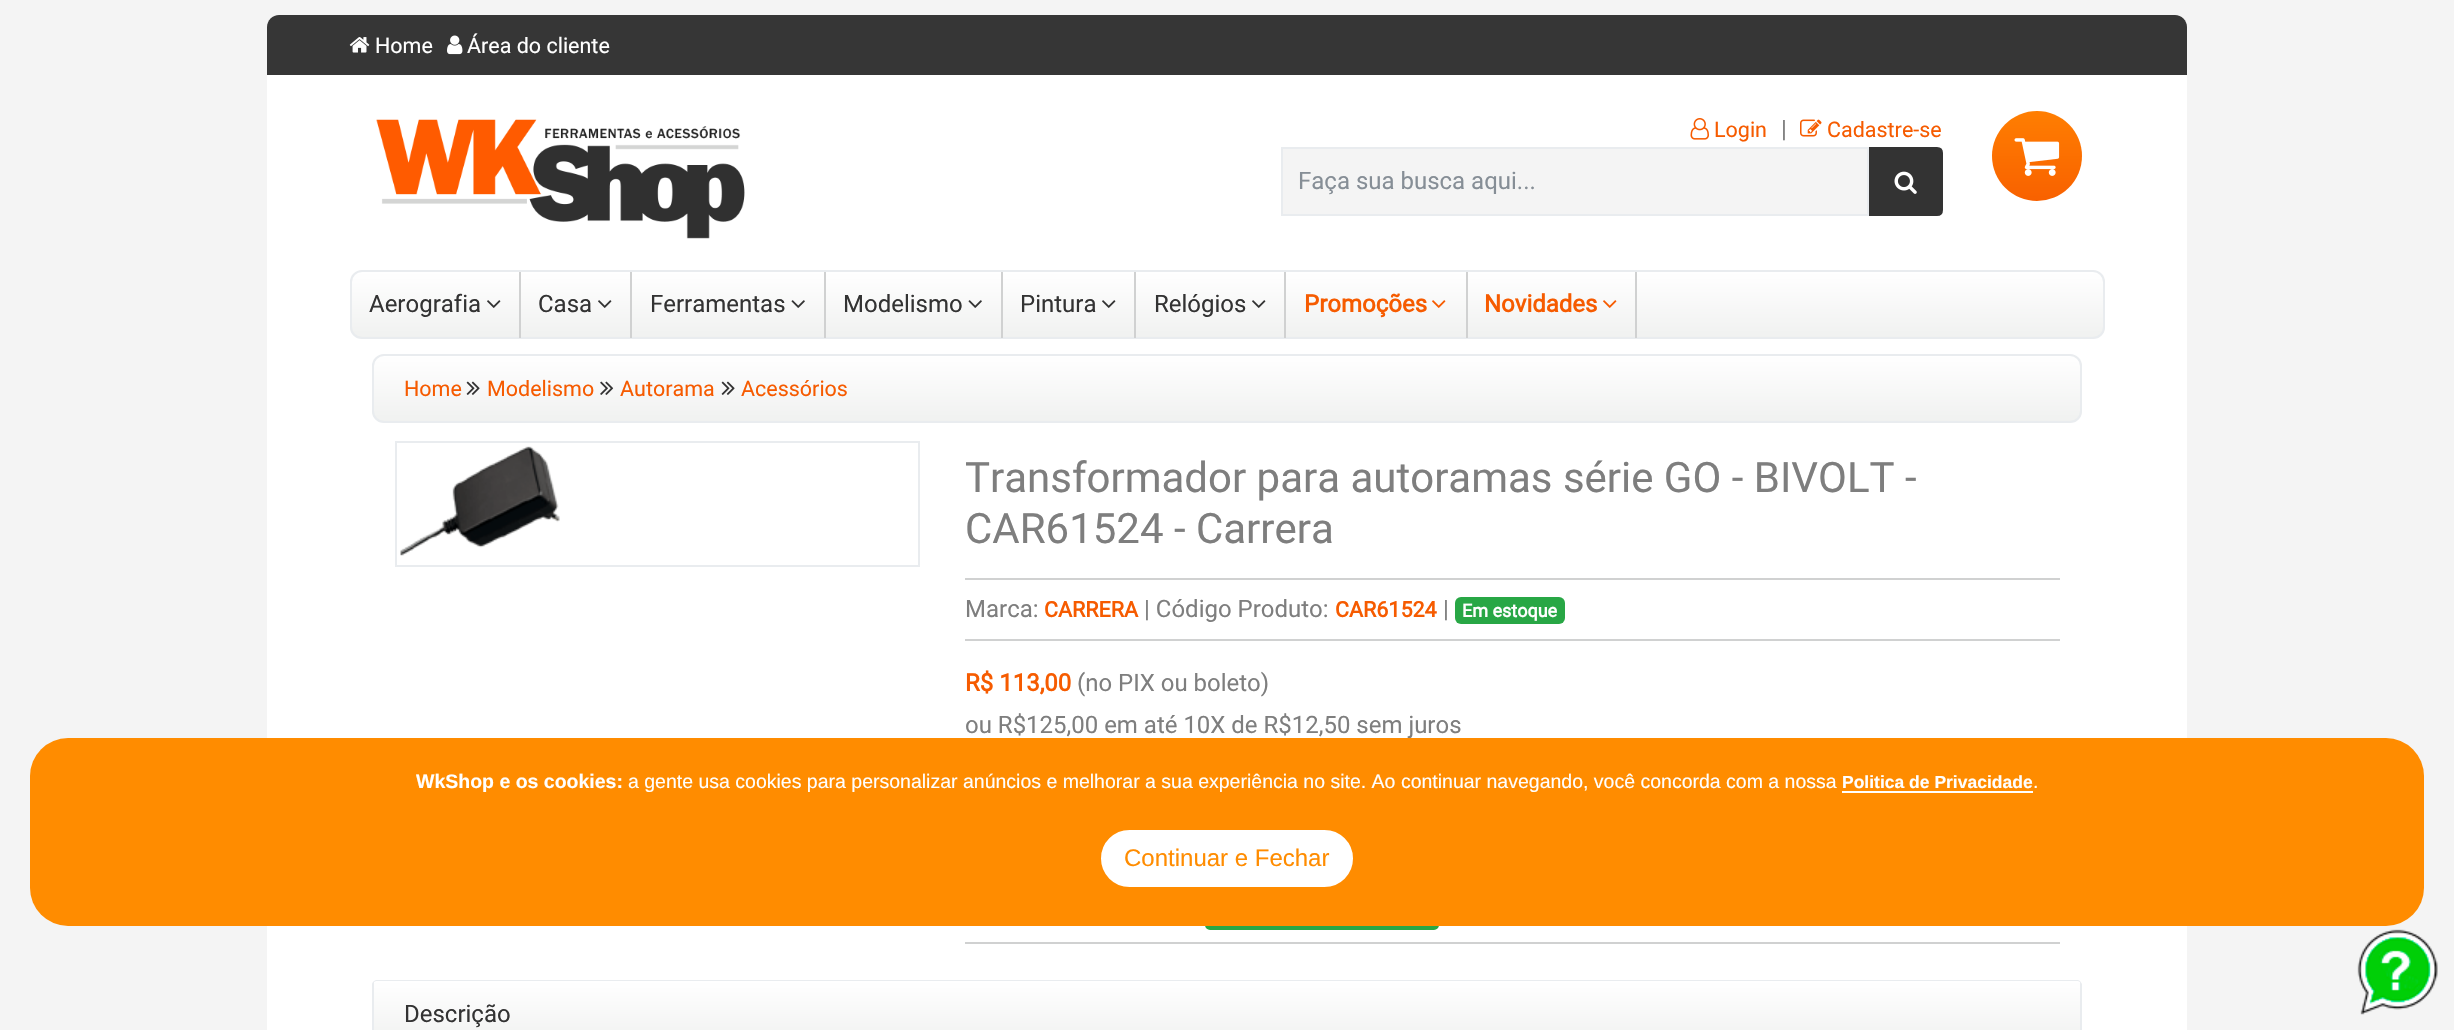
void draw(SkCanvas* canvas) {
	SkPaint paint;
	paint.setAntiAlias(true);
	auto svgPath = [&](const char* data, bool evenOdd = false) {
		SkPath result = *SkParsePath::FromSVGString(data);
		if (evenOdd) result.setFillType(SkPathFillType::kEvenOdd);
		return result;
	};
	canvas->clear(0xfff4f4f4);
	paint.setColor(0xffffffff);
	canvas->drawRoundRect(SkRect::MakeXYWH(267, 15, 1920, 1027), 12, 12, paint);
	paint.setColor(0xff363636);
	canvas->drawPath(svgPath("M279 15H2175C2181.5 15 2187 20.5 2187 27V75H267V27C267 20.5 272.5 15 279 15Z"), paint);
	canvas->drawImageRect(SkImages::DeferredFromEncodedData(SkData::MakeFromFileName("img1.png")), SkRect::MakeXYWH(349, 37, 21, 16), SkSamplingOptions());
	SkFont f1(fontMgr->matchFamilyStyle("Roboto", SkFontStyle::Normal()), 21.5);
	f1.setSubpixel(true);
	paint.setColor(0xffffffff);
	canvas->drawString("Home", 375, 53, f1, paint);
	canvas->drawImageRect(SkImages::DeferredFromEncodedData(SkData::MakeFromFileName("img2.png")), SkRect::MakeXYWH(447, 35, 16, 20), SkSamplingOptions());
	canvas->drawString("Área do cliente", 467, 53, f1, paint);
	canvas->drawImageRect(SkImages::DeferredFromEncodedData(SkData::MakeFromFileName("img3.png")), SkRect::MakeXYWH(376, 119, 369, 120), SkSamplingOptions());
	canvas->drawImageRect(SkImages::DeferredFromEncodedData(SkData::MakeFromFileName("img4.png")), SkRect::MakeXYWH(1690, 118, 19, 22), SkSamplingOptions());
	paint.setColor(0xfff65b00);
	canvas->drawString("Login", 1714, 137, f1, paint);
	SkFont f2(fontMgr->matchFamilyStyle("Roboto", SkFontStyle::Normal()), 24);
	f2.setSubpixel(true);
	paint.setColor(0xff7e7e7e);
	canvas->drawString("|", 1781, 137, f2, paint);
	canvas->drawImageRect(SkImages::DeferredFromEncodedData(SkData::MakeFromFileName("img5.png")), SkRect::MakeXYWH(1800, 119, 22, 18), SkSamplingOptions());
	paint.setColor(0xfff65b00);
	canvas->drawString("Cadastre-se", 1827, 137, f1, paint);
	paint.setColor(0xfff4f4f4);
	canvas->drawRect(SkRect::MakeXYWH(1282, 148, 586, 67), paint);
	paint.setStroke(true);
	paint.setStrokeWidth(2);
	paint.setColor(0xffe9ecef);
	canvas->drawRect(SkRect::MakeXYWH(1282, 148, 586, 67), paint);
	paint.setStroke(false);
	paint.setColor(0xff868e96);
	canvas->drawString("Faça sua busca aqui...", 1298, 189, f2, paint);
	paint.setColor(0xff333333);
	canvas->drawPath(svgPath("M1870 148H1937C1940 148 1942 150 1942 153V210C1942 213 1940 215 1937 215H1870Z"), paint);
	paint.setStroke(true);
	canvas->drawPath(svgPath("M1870 148H1937C1940 148 1942 150 1942 153V210C1942 213 1940 215 1937 215H1870Z"), paint);
	canvas->drawImageRect(SkImages::DeferredFromEncodedData(SkData::MakeFromFileName("img6.png")), SkRect::MakeXYWH(1894, 171, 23, 23), SkSamplingOptions());
	paint.setStroke(false);
	{
		const SkColor colors[] = {0xffff7e01, 0xfff86100};
		const float stops[] = {0, 1};
		const SkPoint ends[] = {{2037, 111}, {2037, 201}};
		paint.setShader(SkGradientShader::MakeLinear(ends, colors, stops, 2, SkTileMode::kClamp));
		paint.setAlpha(255);
	}
	canvas->drawCircle(2037, 156, 45, paint);
	canvas->drawImageRect(SkImages::DeferredFromEncodedData(SkData::MakeFromFileName("img7.png")), SkRect::MakeXYWH(2014, 138, 46, 38), SkSamplingOptions());
	canvas->save();
	canvas->clipPath(svgPath("M362 270H2093C2099.5 270 2105 275.5 2105 282V327C2105 333.5 2099.5 339 2093 339H362C355.5 339 350 333.5 350 327V282C350 275.5 355.5 270 362 270Z"), true);
	{
		const SkColor colors[] = {0xfff0f1f0, 0xffffffff};
		const float stops[] = {0, 1};
		const SkPoint ends[] = {{1227, 338}, {1227, 272}};
		paint.setShader(SkGradientShader::MakeLinear(ends, colors, stops, 2, SkTileMode::kClamp));
		paint.setAlpha(255);
	}
	canvas->drawRect(SkRect::MakeXYWH(350, 272, 1755, 66), paint);
	canvas->restore();
	paint.setStroke(true);
	paint.setShader(nullptr);
	paint.setColor(0xffe9ecef);
	canvas->drawRoundRect(SkRect::MakeXYWH(351, 271, 1753, 67), 11, 11, paint);
	paint.setStroke(false);
	paint.setColor(0xffd0d1d1);
	canvas->drawRect(SkRect::MakeXYWH(519, 272, 2, 66), paint);
	paint.setColor(0xff333333);
	canvas->drawString("Aerografia", 369, 312, f2, paint);
	canvas->drawImageRect(SkImages::DeferredFromEncodedData(SkData::MakeFromFileName("img8.png")), SkRect::MakeXYWH(487, 300, 14, 8), SkSamplingOptions());
	paint.setColor(0xffd0d1d1);
	canvas->drawRect(SkRect::MakeXYWH(630, 272, 2, 66), paint);
	paint.setColor(0xff333333);
	canvas->drawString("Casa", 538, 312, f2, paint);
	canvas->drawImageRect(SkImages::DeferredFromEncodedData(SkData::MakeFromFileName("img8.png")), SkRect::MakeXYWH(598, 300, 14, 8), SkSamplingOptions());
	paint.setColor(0xffd0d1d1);
	canvas->drawRect(SkRect::MakeXYWH(824, 272, 2, 66), paint);
	paint.setColor(0xff333333);
	canvas->drawString("Ferramentas", 650, 312, f2, paint);
	canvas->drawImageRect(SkImages::DeferredFromEncodedData(SkData::MakeFromFileName("img9.png")), SkRect::MakeXYWH(791, 300, 14, 8), SkSamplingOptions());
	paint.setColor(0xffd0d1d1);
	canvas->drawRect(SkRect::MakeXYWH(1001, 272, 2, 66), paint);
	paint.setColor(0xff333333);
	canvas->drawString("Modelismo", 843, 312, f2, paint);
	canvas->drawImageRect(SkImages::DeferredFromEncodedData(SkData::MakeFromFileName("img9.png")), SkRect::MakeXYWH(968, 300, 14, 8), SkSamplingOptions());
	paint.setColor(0xffd0d1d1);
	canvas->drawRect(SkRect::MakeXYWH(1134, 272, 2, 66), paint);
	paint.setColor(0xff333333);
	canvas->drawString("Pintura", 1020, 312, f2, paint);
	canvas->drawImageRect(SkImages::DeferredFromEncodedData(SkData::MakeFromFileName("img8.png")), SkRect::MakeXYWH(1102, 300, 14, 8), SkSamplingOptions());
	paint.setColor(0xffd0d1d1);
	canvas->drawRect(SkRect::MakeXYWH(1284, 272, 2, 66), paint);
	paint.setColor(0xff333333);
	canvas->drawString("Relógios", 1154, 312, f2, paint);
	canvas->drawImageRect(SkImages::DeferredFromEncodedData(SkData::MakeFromFileName("img8.png")), SkRect::MakeXYWH(1252, 300, 14, 8), SkSamplingOptions());
	paint.setColor(0xffd0d1d1);
	canvas->drawRect(SkRect::MakeXYWH(1466, 272, 2, 66), paint);
	SkFont f3(fontMgr->matchFamilyStyle("Roboto", SkFontStyle::Bold()), 24);
	f3.setSubpixel(true);
	paint.setColor(0xfff65b00);
	canvas->drawString("Promoções", 1304, 312, f3, paint);
	canvas->drawImageRect(SkImages::DeferredFromEncodedData(SkData::MakeFromFileName("img10.png")), SkRect::MakeXYWH(1432, 300, 14, 8), SkSamplingOptions());
	paint.setColor(0xffd0d1d1);
	canvas->drawRect(SkRect::MakeXYWH(1635, 272, 2, 66), paint);
	paint.setColor(0xfff65b00);
	canvas->drawString("Novidades", 1484, 312, f3, paint);
	canvas->drawImageRect(SkImages::DeferredFromEncodedData(SkData::MakeFromFileName("img10.png")), SkRect::MakeXYWH(1603, 300, 14, 8), SkSamplingOptions());
	canvas->save();
	canvas->clipPath(svgPath("M384 354H2070C2076.5 354 2082 359.5 2082 366V411C2082 417.5 2076.5 423 2070 423H384C377.5 423 372 417.5 372 411V366C372 359.5 377.5 354 384 354Z"), true);
	{
		const SkColor colors[] = {0xffffffff, 0xfff0f1f0};
		const float stops[] = {0, 1};
		const SkPoint ends[] = {{1227, 355}, {1227, 422}};
		paint.setShader(SkGradientShader::MakeLinear(ends, colors, stops, 2, SkTileMode::kClamp));
		paint.setAlpha(255);
	}
	canvas->drawRect(SkRect::MakeXYWH(372, 356, 1710, 66), paint);
	canvas->restore();
	paint.setStroke(true);
	paint.setShader(nullptr);
	paint.setColor(0xffe9ecef);
	canvas->drawRoundRect(SkRect::MakeXYWH(373, 355, 1708, 67), 11, 11, paint);
	paint.setStroke(false);
	paint.setColor(0xfff65b00);
	canvas->drawString("Home", 404, 396, f1, paint);
	canvas->drawImageRect(SkImages::DeferredFromEncodedData(SkData::MakeFromFileName("img11.png")), SkRect::MakeXYWH(466, 381, 14, 14), SkSamplingOptions());
	canvas->drawString("Modelismo", 487, 396, f1, paint);
	canvas->drawImageRect(SkImages::DeferredFromEncodedData(SkData::MakeFromFileName("img12.png")), SkRect::MakeXYWH(600, 381, 14, 14), SkSamplingOptions());
	canvas->drawString("Autorama", 620, 396, f1, paint);
	canvas->drawImageRect(SkImages::DeferredFromEncodedData(SkData::MakeFromFileName("img11.png")), SkRect::MakeXYWH(721, 381, 14, 14), SkSamplingOptions());
	canvas->drawString("Acessórios", 741, 396, f1, paint);
	paint.setStroke(true);
	paint.setColor(0xffe9ecef);
	canvas->drawRect(SkRect::MakeXYWH(396, 442, 523, 124), paint);
	canvas->drawImageRect(SkImages::DeferredFromEncodedData(SkData::MakeFromFileName("img13.png")), SkRect::MakeXYWH(400, 446, 160, 110), SkSamplingOptions());
	paint.setStroke(false);
	paint.setColor(0xffd0d1d1);
	canvas->drawRect(SkRect::MakeXYWH(965, 578, 1095, 2), paint);
	SkFont f4(fontMgr->matchFamilyStyle("Roboto", SkFontStyle::Normal()), 42);
	f4.setSubpixel(true);
	paint.setColor(0xff7e7e7e);
	canvas->drawString("Transformador para autoramas série GO - BIVOLT -", 965, 492, f4, paint);
	canvas->drawString("CAR61524 - Carrera", 965, 543, f4, paint);
	paint.setColor(0xffd0d1d1);
	canvas->drawRect(SkRect::MakeXYWH(965, 639, 1095, 2), paint);
	paint.setColor(0xff7e7e7e);
	canvas->drawString("Marca:", 965, 617, f2, paint);
	SkFont f5(fontMgr->matchFamilyStyle("Roboto", SkFontStyle::Bold()), 21.5);
	f5.setSubpixel(true);
	paint.setColor(0xfff65b00);
	canvas->drawString("CARRERA", 1044, 617, f5, paint);
	paint.setColor(0xff7e7e7e);
	canvas->drawString("| Código Produto:", 1144, 617, f2, paint);
	paint.setColor(0xfff65b00);
	canvas->drawString("CAR61524", 1335, 617, f5, paint);
	paint.setColor(0xff7e7e7e);
	canvas->drawString("|", 1443, 617, f2, paint);
	paint.setColor(0xff28a745);
	canvas->drawRoundRect(SkRect::MakeXYWH(1455, 597, 110, 27), 6, 6, paint);
	SkFont f6(fontMgr->matchFamilyStyle("Roboto", SkFontStyle::Bold()), 18);
	f6.setSubpixel(true);
	paint.setColor(0xffffffff);
	canvas->drawString("Em estoque", 1462, 617, f6, paint);
	paint.setColor(0xfff65b00);
	canvas->drawString("R$ 113,00", 965, 691, f3, paint);
	paint.setColor(0xff7e7e7e);
	canvas->drawString("(no PIX ou boleto)", 1077, 691, f2, paint);
	canvas->drawString("ou R$125,00 em até 10X de R$12,50 sem juros", 965, 733, f2, paint);
	paint.setColor(0xffd0d1d1);
	canvas->drawRect(SkRect::MakeXYWH(965, 942, 1095, 2), paint);
	paint.setColor(0xff28a745);
	canvas->drawRoundRect(SkRect::MakeXYWH(1206, 885, 232, 44), 4, 4, paint);
	paint.setStroke(true);
	canvas->drawRoundRect(SkRect::MakeXYWH(1206, 885, 232, 44), 4, 4, paint);
	paint.setStroke(false);
	{
		const SkColor colors[] = {0xffffffff, 0xfff0f1f0};
		const float stops[] = {0, 1};
		const SkPoint ends[] = {{1227, 981}, {1227, 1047}};
		paint.setShader(SkGradientShader::MakeLinear(ends, colors, stops, 2, SkTileMode::kClamp));
		paint.setAlpha(255);
	}
	canvas->drawPath(svgPath("M377 981H2078C2079.5 981 2081 982.5 2081 984V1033H374V984C374 982.5 375.5 981 377 981Z"), paint);
	paint.setShader(nullptr);
	paint.setColor(0xffe9ecef);
	canvas->drawPath(svgPath("M376 980L374 981V982L376 981H2078L2080 982V981L2078 980Z"), paint);
	canvas->drawPath(svgPath("M2080 981L2082 984V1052L2080 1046V984V982Z"), paint);
	canvas->drawPath(svgPath("M372 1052L374 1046V984V982V981C373 982 372 983 372 984Z"), paint);
	paint.setColor(0xff333333);
	canvas->drawString("Descrição", 404, 1022, f2, paint);
	canvas->drawImageRect(SkImages::DeferredFromEncodedData(SkData::MakeFromFileName("img14.png")), SkRect::MakeXYWH(2357, 929, 81, 86), SkSamplingOptions());
	paint.setColor(0xffff8c00);
	canvas->drawRoundRect(SkRect::MakeXYWH(30, 738, 2394, 188), 38, 38, paint);
	SkFont f7(fontMgr->matchFamilyStyle("Liberation Sans", SkFontStyle::Bold()), 19.5);
	f7.setSubpixel(true);
	paint.setColor(0xffffffff);
	canvas->drawString("WkShop e os cookies:", 416, 788, f7, paint);
	SkFont f8(fontMgr->matchFamilyStyle("Liberation Sans", SkFontStyle::Normal()), 19.5);
	f8.setSubpixel(true);
	canvas->drawString("a gente usa cookies para personalizar anúncios e melhorar a sua experiência no site. Ao continuar navegando, você concorda com a nossa", 628, 788, f8, paint);
	SkFont f9(fontMgr->matchFamilyStyle("Liberation Sans", SkFontStyle::Bold()), 17.5);
	f9.setSubpixel(true);
	canvas->drawString("Politica de Privacidade", 1842, 788, f9, paint);
	canvas->drawRect(SkRect::MakeXYWH(1842, 791, 191, 2), paint);
	canvas->drawString(".", 2033, 788, f8, paint);
	canvas->drawRoundRect(SkRect::MakeXYWH(1099.5, 828.5, 255, 60), 30, 30, paint);
	paint.setStroke(true);
	paint.setStrokeWidth(3);
	paint.setColor(0xffff8c00);
	canvas->drawRoundRect(SkRect::MakeXYWH(1099.5, 828.5, 255, 60), 30, 30, paint);
	SkFont f10(fontMgr->matchFamilyStyle("Liberation Sans", SkFontStyle::Normal()), 24);
	f10.setSubpixel(true);
	paint.setStroke(false);
	canvas->drawString("Continuar e Fechar", 1124, 866, f10, paint);
}
